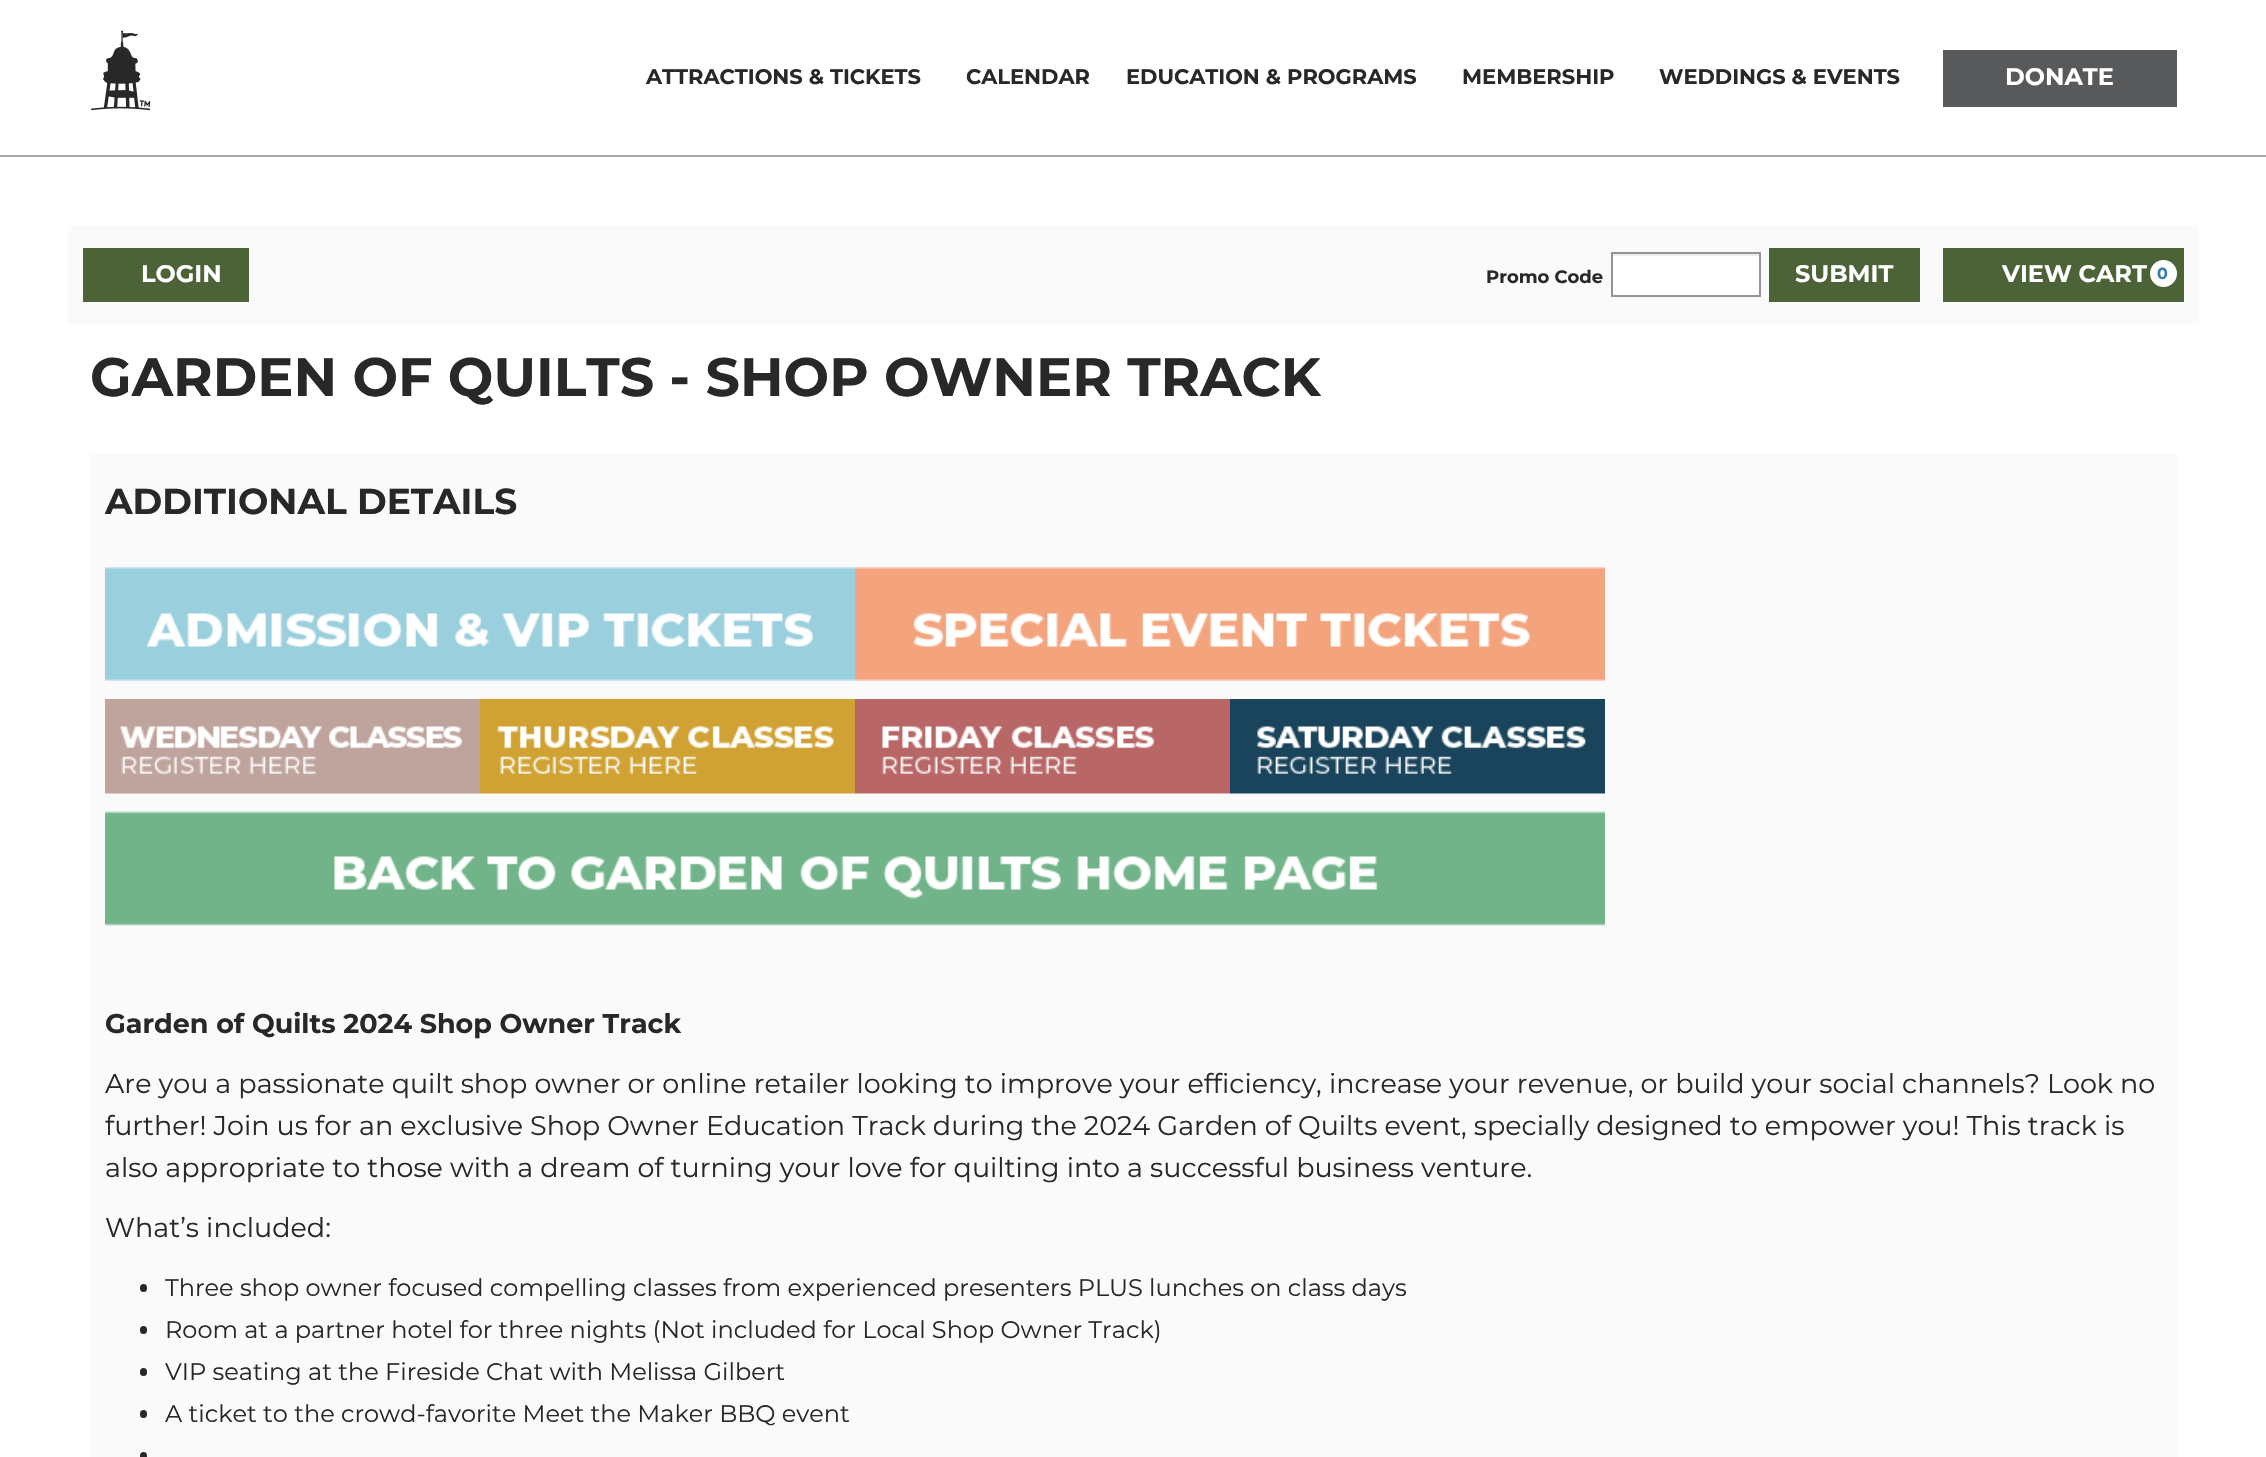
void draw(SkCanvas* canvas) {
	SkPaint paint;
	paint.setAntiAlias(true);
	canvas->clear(0xffffffff);
	paint.setColor(0xffa8a8a8);
	canvas->drawRect(SkRect::MakeXYWH(0, 155, 2266, 2), paint);
	canvas->drawImageRect(SkImages::DeferredFromEncodedData(SkData::MakeFromFileName("img1.png")), SkRect::MakeXYWH(91, 30, 60, 81), SkSamplingOptions());
	SkFont f1(fontMgr->matchFamilyStyle("Montserrat", SkFontStyle::Bold()), 21);
	f1.setSubpixel(true);
	paint.setColor(0xff282828);
	canvas->drawString("ATTRACTIONS & TICKETS", 646, 84, f1, paint);
	canvas->drawString("CALENDAR", 966, 84, f1, paint);
	canvas->drawString("EDUCATION & PROGRAMS", 1126, 84, f1, paint);
	canvas->drawString("MEMBERSHIP", 1462, 84, f1, paint);
	canvas->drawString("WEDDINGS & EVENTS", 1659, 84, f1, paint);
	paint.setColor(0xff58595b);
	canvas->drawRect(SkRect::MakeXYWH(1944, 51, 232, 55), paint);
	paint.setStroke(true);
	paint.setStrokeWidth(2);
	canvas->drawRect(SkRect::MakeXYWH(1944, 51, 232, 55), paint);
	SkFont f2(fontMgr->matchFamilyStyle("Montserrat", SkFontStyle::Bold()), 24);
	f2.setSubpixel(true);
	paint.setStroke(false);
	paint.setColor(0xffffffff);
	canvas->drawString("DONATE", 2005, 85, f2, paint);
	paint.setColor(0xfffafafa);
	canvas->drawRect(SkRect::MakeXYWH(68, 225, 2131, 99), paint);
	paint.setColor(0xff4b6336);
	canvas->drawRect(SkRect::MakeXYWH(83, 248, 166, 54), paint);
	paint.setColor(0xffffffff);
	canvas->drawString("LOGIN", 141, 282, f2, paint);
	SkFont f3(fontMgr->matchFamilyStyle("Montserrat", SkFontStyle::Bold()), 18);
	f3.setSubpixel(true);
	paint.setColor(0xff282828);
	canvas->drawString("Promo Code", 1486, 283, f3, paint);
	paint.setColor(0xffffffff);
	canvas->drawRect(SkRect::MakeXYWH(1613, 256, 146, 39), paint);
	paint.setColor(0xffececec);
	canvas->drawRect(SkRect::MakeXYWH(1613, 254, 147, 2), paint);
	paint.setStroke(true);
	paint.setColor(0xff949494);
	canvas->drawRect(SkRect::MakeXYWH(1612, 253, 148, 43), paint);
	paint.setStroke(false);
	paint.setColor(0xff4b6336);
	canvas->drawRect(SkRect::MakeXYWH(1769, 248, 151, 54), paint);
	paint.setColor(0xffffffff);
	canvas->drawString("SUBMIT", 1795, 282, f2, paint);
	paint.setColor(0xff4b6336);
	canvas->drawRect(SkRect::MakeXYWH(1943, 248, 241, 54), paint);
	paint.setColor(0xffffffff);
	canvas->drawString("VIEW CART", 2002, 282, f2, paint);
	canvas->drawCircle(2163.5, 273.5, 13.5, paint);
	SkFont f4(fontMgr->matchFamilyStyle("Montserrat", SkFontStyle::Bold()), 16);
	f4.setSubpixel(true);
	paint.setColor(0xff337ab7);
	canvas->drawString("0", 2157, 279, f4, paint);
	SkFont f5(fontMgr->matchFamilyStyle("Montserrat", SkFontStyle::Bold()), 54);
	f5.setSubpixel(true);
	paint.setColor(0xff282828);
	canvas->drawString("GARDEN OF QUILTS - SHOP OWNER TRACK", 90, 396, f5, paint);
	paint.setColor(0xfffafafa);
	canvas->drawRect(SkRect::MakeXYWH(90, 453, 2087, 1004), paint);
	SkFont f6(fontMgr->matchFamilyStyle("Montserrat", SkFontStyle::Bold()), 36);
	f6.setSubpixel(true);
	paint.setColor(0xff282828);
	canvas->drawString("ADDITIONAL DETAILS", 105, 514, f6, paint);
	canvas->drawImageRect(SkImages::DeferredFromEncodedData(SkData::MakeFromFileName("img2.png")), SkRect::MakeXYWH(105, 567, 750, 114), SkSamplingOptions());
	canvas->drawImageRect(SkImages::DeferredFromEncodedData(SkData::MakeFromFileName("img3.png")), SkRect::MakeXYWH(855, 567, 750, 114), SkSamplingOptions());
	canvas->drawImageRect(SkImages::DeferredFromEncodedData(SkData::MakeFromFileName("img4.png")), SkRect::MakeXYWH(105, 699, 375, 95), SkSamplingOptions());
	canvas->drawImageRect(SkImages::DeferredFromEncodedData(SkData::MakeFromFileName("img5.png")), SkRect::MakeXYWH(480, 699, 375, 95), SkSamplingOptions());
	canvas->drawImageRect(SkImages::DeferredFromEncodedData(SkData::MakeFromFileName("img6.png")), SkRect::MakeXYWH(855, 699, 375, 95), SkSamplingOptions());
	canvas->drawImageRect(SkImages::DeferredFromEncodedData(SkData::MakeFromFileName("img7.png")), SkRect::MakeXYWH(1230, 699, 375, 95), SkSamplingOptions());
	canvas->drawImageRect(SkImages::DeferredFromEncodedData(SkData::MakeFromFileName("img8.png")), SkRect::MakeXYWH(105, 811, 1500, 115), SkSamplingOptions());
	SkFont f7(fontMgr->matchFamilyStyle("Montserrat", SkFontStyle::Bold()), 27);
	f7.setSubpixel(true);
	canvas->drawString("Garden of Quilts 2024 Shop Owner Track", 105, 1033, f7, paint);
	SkFont f8(fontMgr->matchFamilyStyle("Montserrat", SkFontStyle::Normal()), 27);
	f8.setSubpixel(true);
	canvas->drawString("Are you a passionate quilt shop owner or online retailer looking to improve your efficiency, increase your revenue, or build your social channels? Look no", 105, 1093, f8, paint);
	canvas->drawString("further! Join us for an exclusive Shop Owner Education Track during the 2024 Garden of Quilts event, specially designed to empower you! This track is", 105, 1135, f8, paint);
	canvas->drawString("also appropriate to those with a dream of turning your love for quilting into a successful business venture.", 105, 1177, f8, paint);
	canvas->drawString("What’s included:", 105, 1237, f8, paint);
	canvas->drawRoundRect(SkRect::MakeXYWH(140, 1284, 7, 8), 3.5, 3.5, paint);
	SkFont f9(fontMgr->matchFamilyStyle("Montserrat", SkFontStyle::Normal()), 24);
	f9.setSubpixel(true);
	canvas->drawString("Three shop owner focused compelling classes from experienced presenters PLUS lunches on class days", 165, 1296, f9, paint);
	canvas->drawRoundRect(SkRect::MakeXYWH(140, 1326, 7, 8), 3.5, 3.5, paint);
	canvas->drawString("Room at a partner hotel for three nights (Not included for Local Shop Owner Track)", 165, 1338, f9, paint);
	canvas->drawRoundRect(SkRect::MakeXYWH(140, 1368, 7, 8), 3.5, 3.5, paint);
	canvas->drawString("VIP seating at the Fireside Chat with Melissa Gilbert", 165, 1380, f9, paint);
	canvas->drawRoundRect(SkRect::MakeXYWH(140, 1410, 7, 8), 3.5, 3.5, paint);
	canvas->drawString("A ticket to the crowd-favorite Meet the Maker BBQ event", 165, 1422, f9, paint);
	canvas->drawRoundRect(SkRect::MakeXYWH(140, 1452, 7, 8), 3.5, 3.5, paint);
}
